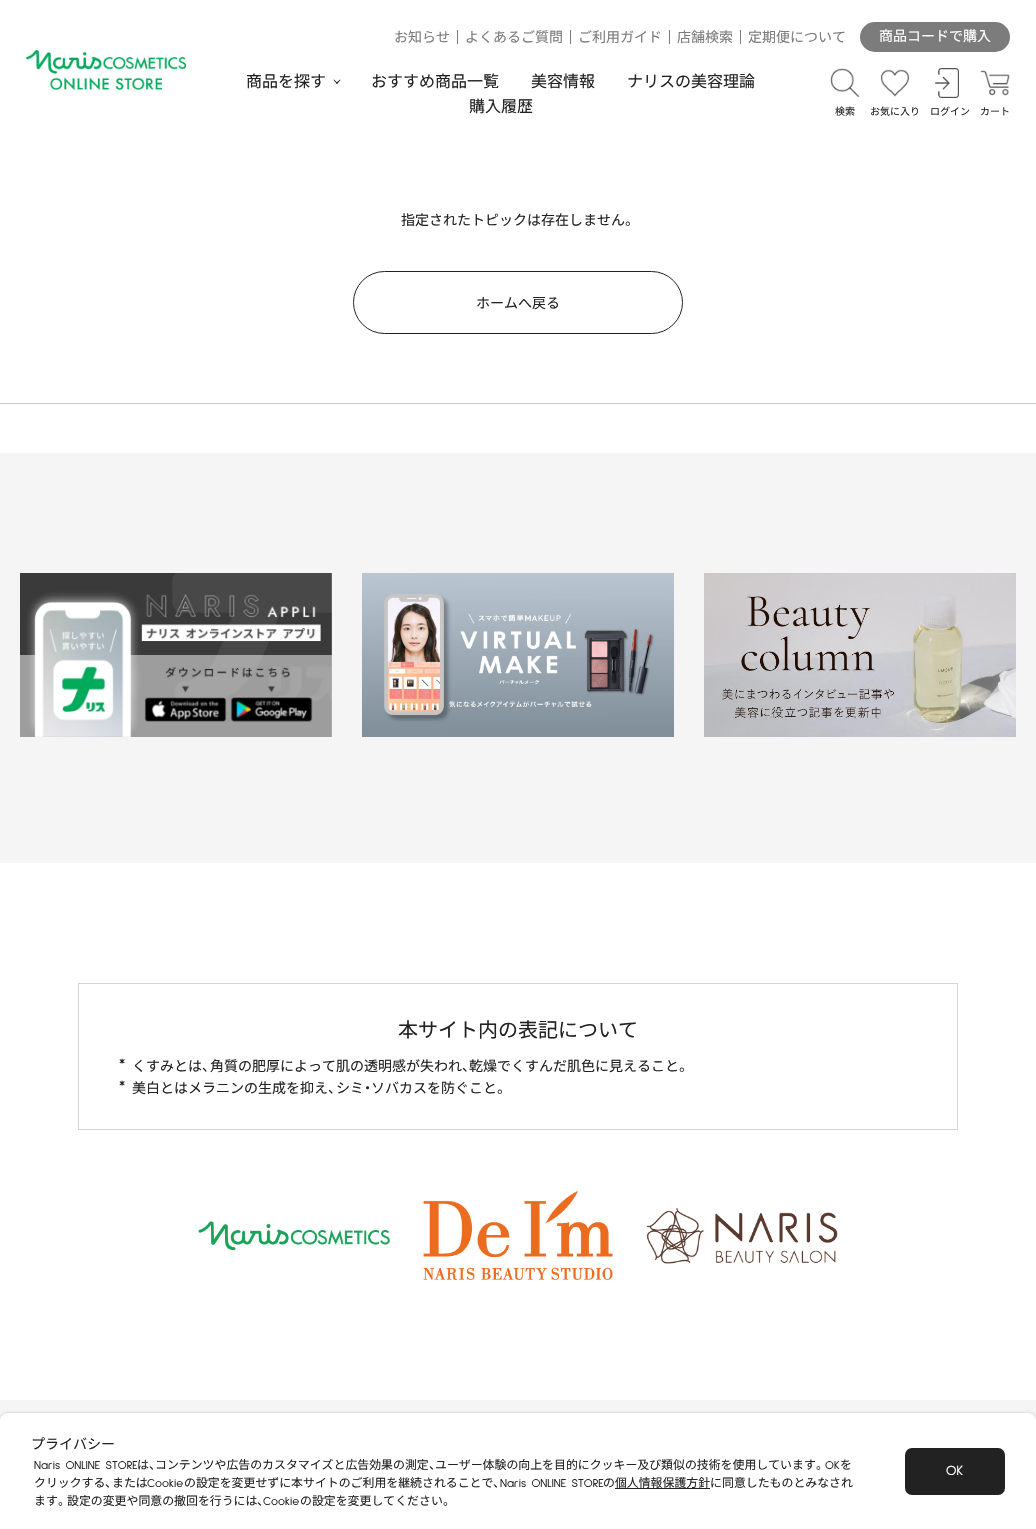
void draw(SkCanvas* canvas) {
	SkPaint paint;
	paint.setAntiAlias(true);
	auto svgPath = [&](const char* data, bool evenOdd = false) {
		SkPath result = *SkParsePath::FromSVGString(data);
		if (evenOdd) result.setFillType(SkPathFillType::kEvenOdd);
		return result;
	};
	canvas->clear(0xffffffff);
	canvas->drawImageRect(SkImages::DeferredFromEncodedData(SkData::MakeFromFileName("img1.png")), SkRect::MakeXYWH(26, 50, 160, 40), SkSamplingOptions());
	SkFont f1(fontMgr->matchFamilyStyle("Noto Sans JP", SkFontStyle::Normal()), 14);
	f1.setSubpixel(true);
	paint.setColor(0xff7c7c7c);
	canvas->drawString("お知らせ", 394, 42, f1, paint);
	canvas->drawRect(SkRect::MakeXYWH(457, 30, 1, 14), paint);
	canvas->drawString("よくあるご質問", 465, 42, f1, paint);
	canvas->drawRect(SkRect::MakeXYWH(570, 30, 1, 14), paint);
	canvas->drawString("ご利用ガイド", 578, 42, f1, paint);
	canvas->drawRect(SkRect::MakeXYWH(669, 30, 1, 14), paint);
	canvas->drawString("店舗検索", 677, 42, f1, paint);
	canvas->drawRect(SkRect::MakeXYWH(740, 30, 1, 14), paint);
	canvas->drawString("定期便について", 748, 42, f1, paint);
	canvas->drawRoundRect(SkRect::MakeXYWH(860, 22, 150, 30), 15, 15, paint);
	paint.setColor(0xffffffff);
	canvas->drawString("商品コードで購入", 879, 41, f1, paint);
	SkFont f2(fontMgr->matchFamilyStyle("Noto Sans JP", SkFontStyle::Normal()), 16);
	f2.setSubpixel(true);
	paint.setColor(0xff222222);
	canvas->drawString("商品を探す", 246, 87, f2, paint);
	canvas->drawPath(svgPath("M340.5 80L337 84L336 83L340 79.5Z"), paint);
	canvas->drawPath(svgPath("M337.5 83L337 84L333.5 80L334 79.5Z"), paint);
	canvas->drawString("おすすめ商品一覧", 371, 87, f2, paint);
	canvas->drawString("美容情報", 531, 87, f2, paint);
	canvas->drawString("ナリスの美容理論", 627, 87, f2, paint);
	canvas->drawString("購入履歴", 469, 112, f2, paint);
	canvas->drawImageRect(SkImages::DeferredFromEncodedData(SkData::MakeFromFileName("img2.png")), SkRect::MakeXYWH(830, 68, 30, 30), SkSamplingOptions());
	SkFont f3(fontMgr->matchFamilyStyle("Noto Sans JP", SkFontStyle::Normal()), 10);
	f3.setSubpixel(true);
	canvas->drawString("検索", 835, 115, f3, paint);
	canvas->drawImageRect(SkImages::DeferredFromEncodedData(SkData::MakeFromFileName("img3.png")), SkRect::MakeXYWH(880, 69, 30, 28), SkSamplingOptions());
	canvas->drawString("お気に入り", 870, 115, f3, paint);
	canvas->drawImageRect(SkImages::DeferredFromEncodedData(SkData::MakeFromFileName("img4.png")), SkRect::MakeXYWH(935, 68, 24, 30), SkSamplingOptions());
	canvas->drawString("ログイン", 930, 115, f3, paint);
	canvas->drawImageRect(SkImages::DeferredFromEncodedData(SkData::MakeFromFileName("img5.png")), SkRect::MakeXYWH(980, 70, 30, 26), SkSamplingOptions());
	canvas->drawString("カート", 980, 115, f3, paint);
	canvas->drawString("指定されたトピックは存在しません", 401, 225, f1, paint);
	SkFont f4(fontMgr->matchFamilyStyle("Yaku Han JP", SkFontStyle::Normal()), 14);
	f4.setSubpixel(true);
	canvas->drawString("。", 625, 225, f4, paint);
	paint.setStroke(true);
	paint.setStrokeWidth(1);
	canvas->drawRoundRect(SkRect::MakeXYWH(353.5, 271.5, 329, 62), 31, 31, paint);
	paint.setStroke(false);
	canvas->drawString("ホームへ戻る", 476, 308, f1, paint);
	paint.setColor(0xffcccccc);
	canvas->drawRect(SkRect::MakeXYWH(0, 403, 1036, 1), paint);
	paint.setColor(0xfff5f5f5);
	canvas->drawRect(SkRect::MakeXYWH(0, 453, 1036, 410), paint);
	canvas->drawImageRect(SkImages::DeferredFromEncodedData(SkData::MakeFromFileName("img6.png")), SkRect::MakeXYWH(20, 573, 312, 164), SkSamplingOptions());
	canvas->drawImageRect(SkImages::DeferredFromEncodedData(SkData::MakeFromFileName("img7.png")), SkRect::MakeXYWH(362, 573, 312, 164), SkSamplingOptions());
	canvas->drawImageRect(SkImages::DeferredFromEncodedData(SkData::MakeFromFileName("img8.png")), SkRect::MakeXYWH(704, 573, 312, 164), SkSamplingOptions());
	paint.setStroke(true);
	paint.setColor(0xffd5d5d5);
	canvas->drawRect(SkRect::MakeXYWH(78.5, 983.5, 879, 146), paint);
	SkFont f5(fontMgr->matchFamilyStyle("Noto Sans JP", SkFontStyle::Normal()), 20);
	f5.setSubpixel(true);
	paint.setStroke(false);
	paint.setColor(0xff222222);
	canvas->drawString("本サイト内の表記について", 398, 1037, f5, paint);
	SkFont f6(fontMgr->matchFamilyStyle("Sulphur Point", SkFontStyle::Normal()), 14);
	f6.setSubpixel(true);
	canvas->drawString("*", 119, 1068, f6, paint);
	canvas->drawString("くすみとは", 132, 1071, f1, paint);
	canvas->drawString("、", 202, 1071, f4, paint);
	canvas->drawString("角質の肥厚によって肌の透明感が失われ", 210, 1071, f1, paint);
	canvas->drawString("、", 462, 1071, f4, paint);
	canvas->drawString("乾燥でくすんだ肌色に見えること", 469, 1071, f1, paint);
	canvas->drawString("。", 679, 1071, f4, paint);
	canvas->drawString("*", 119, 1090, f6, paint);
	canvas->drawString("美白とはメラニンの生成を抑え", 132, 1093, f1, paint);
	canvas->drawString("シミ", 336, 1093, f1, paint);
	canvas->drawString("・", 364, 1093, f4, paint);
	canvas->drawString("ソバカスを防ぐこと", 371, 1093, f1, paint);
	canvas->drawString("、", 328, 1093, f4, paint);
	canvas->drawString("。", 497, 1093, f4, paint);
	canvas->drawImageRect(SkImages::DeferredFromEncodedData(SkData::MakeFromFileName("img9.png")), SkRect::MakeXYWH(198, 1221, 192, 29), SkSamplingOptions());
	canvas->drawImageRect(SkImages::DeferredFromEncodedData(SkData::MakeFromFileName("img10.png")), SkRect::MakeXYWH(423, 1190, 190, 90), SkSamplingOptions());
	canvas->drawImageRect(SkImages::DeferredFromEncodedData(SkData::MakeFromFileName("img11.png")), SkRect::MakeXYWH(646, 1207, 192, 57), SkSamplingOptions());
	paint.setColor(0xfff5f5f5);
	canvas->drawRect(SkRect::MakeXYWH(0, 1400, 1036, 21), paint);
	paint.setColor(0x33000000);
	paint.setMaskFilter(SkMaskFilter::MakeBlur(kNormal_SkBlurStyle, 1.5));
	canvas->drawRoundRect(SkRect::MakeXYWH(0, 1413, 1036, 116), 8, 8, paint);
	paint.setMaskFilter(nullptr);
	paint.setColor(0xffffffff);
	canvas->drawPath(svgPath("M8 1413H1028C1032.5 1413 1036 1416.5 1036 1421V1529H0V1421C0 1416.5 3.5 1413 8 1413Z"), paint);
	paint.setColor(0xff222222);
	canvas->drawString("プライバシー", 31, 1449, f1, paint);
	SkFont f7(fontMgr->matchFamilyStyle("Sulphur Point", SkFontStyle::Normal()), 11.9);
	f7.setSubpixel(true);
	canvas->drawString("Naris ONLINE STORE", 34, 1469, f7, paint);
	SkFont f8(fontMgr->matchFamilyStyle("Noto Sans JP", SkFontStyle::Normal()), 11.9);
	f8.setSubpixel(true);
	canvas->drawString("は", 137, 1469, f8, paint);
	SkFont f9(fontMgr->matchFamilyStyle("Yaku Han JP", SkFontStyle::Normal()), 11.9);
	f9.setSubpixel(true);
	canvas->drawString("、", 149, 1469, f9, paint);
	canvas->drawString("コンテンツや広告のカスタマイズと広告効果の測定", 155, 1469, f8, paint);
	canvas->drawString("、", 429, 1469, f9, paint);
	canvas->drawString("ユーザー体験の向上を目的にクッキー及び類似の技術を使用しています", 435, 1469, f8, paint);
	canvas->drawString("。", 816, 1469, f9, paint);
	canvas->drawString("OK", 825, 1469, f7, paint);
	canvas->drawString("を", 840, 1469, f8, paint);
	canvas->drawString("クリックする", 34, 1487, f8, paint);
	canvas->drawString("、", 105, 1487, f9, paint);
	canvas->drawString("または", 112, 1487, f8, paint);
	canvas->drawString("Cookie", 147, 1487, f7, paint);
	canvas->drawString("の設定を変更せずに本サイトのご利用を継続されることで", 184, 1487, f8, paint);
	canvas->drawString("、", 493, 1487, f9, paint);
	canvas->drawString("Naris ONLINE STORE", 500, 1487, f7, paint);
	canvas->drawString("の個人情報保護方針に同意したものとみなされ", 603, 1487, f8, paint);
	canvas->drawRect(SkRect::MakeXYWH(615, 1488, 95, 1), paint);
	canvas->drawString("ます", 34, 1505, f8, paint);
	canvas->drawString("。", 58, 1505, f9, paint);
	canvas->drawString("設定の変更や同意の撤回を行うには", 67, 1505, f8, paint);
	canvas->drawString("、", 257, 1505, f9, paint);
	canvas->drawString("Cookie", 263, 1505, f7, paint);
	canvas->drawString("の設定を変更してください", 300, 1505, f8, paint);
	canvas->drawString("。", 443, 1505, f9, paint);
	canvas->drawRoundRect(SkRect::MakeXYWH(905, 1448, 100, 47), 7, 7, paint);
	paint.setColor(0xffffffff);
	canvas->drawString("OK", 946, 1475, f6, paint);
}
